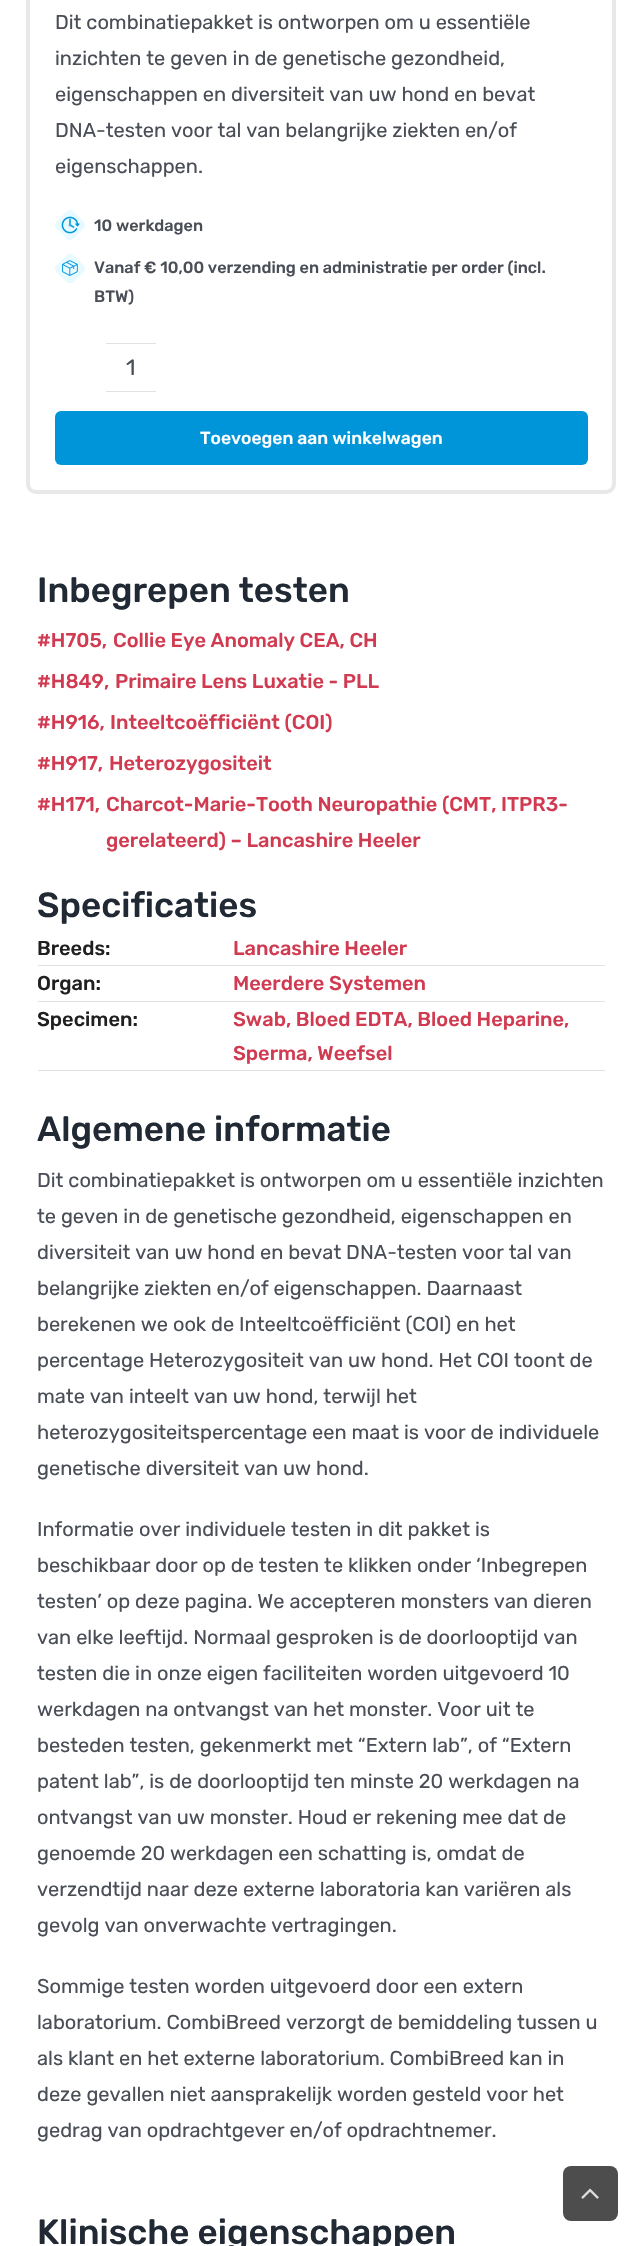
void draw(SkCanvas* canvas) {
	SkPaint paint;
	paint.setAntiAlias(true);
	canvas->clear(0xffffffff);
	paint.setStroke(true);
	paint.setStrokeWidth(4);
	paint.setColor(0xffe8e8e8);
	canvas->drawRoundRect(SkRect::MakeXYWH(28, -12, 586, 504), 8, 8, paint);
	SkFont f1(fontMgr->matchFamilyStyle("Rubik", SkFontStyle::Normal()), 20);
	f1.setSubpixel(true);
	paint.setStroke(false);
	paint.setColor(0xff4a4e57);
	canvas->drawString("Dit combinatiepakket is ontworpen om u essentiële", 55, 29, f1, paint);
	canvas->drawString("inzichten te geven in de genetische gezondheid,", 55, 65, f1, paint);
	canvas->drawString("eigenschappen en diversiteit van uw hond en bevat", 55, 101, f1, paint);
	canvas->drawString("DNA-testen voor tal van belangrijke ziekten en/of", 55, 137, f1, paint);
	canvas->drawString("eigenschappen.", 55, 173, f1, paint);
	canvas->drawImageRect(SkImages::DeferredFromEncodedData(SkData::MakeFromFileName("img1.png")), SkRect::MakeXYWH(55, 210, 30, 30), SkSamplingOptions());
	SkFont f2(fontMgr->matchFamilyStyle("Rubik", SkFontStyle(500, SkFontStyle::kNormal_Width, SkFontStyle::kUpright_Slant)), 16.25);
	f2.setSubpixel(true);
	canvas->drawString("10 werkdagen", 94, 231, f2, paint);
	canvas->drawImageRect(SkImages::DeferredFromEncodedData(SkData::MakeFromFileName("img2.png")), SkRect::MakeXYWH(55, 254, 30, 29), SkSamplingOptions());
	canvas->drawString("Vanaf € 10,00 verzending en administratie per order (incl.", 94, 273, f2, paint);
	canvas->drawString("BTW)", 94, 302, f2, paint);
	paint.setColor(0xffe2e2e2);
	canvas->drawRect(SkRect::MakeXYWH(106, 343, 50, 1), paint);
	canvas->drawRect(SkRect::MakeXYWH(106, 391, 50, 1), paint);
	SkFont f3(fontMgr->matchFamilyStyle("Rubik", SkFontStyle::Normal()), 22);
	f3.setSubpixel(true);
	paint.setColor(0xff4a4e57);
	canvas->drawString("1", 126, 375, f3, paint);
	paint.setColor(0xff0095d9);
	canvas->drawRoundRect(SkRect::MakeXYWH(55, 411, 533, 54), 6, 6, paint);
	SkFont f4(fontMgr->matchFamilyStyle("Rubik", SkFontStyle(500, SkFontStyle::kNormal_Width, SkFontStyle::kUpright_Slant)), 17.5);
	f4.setSubpixel(true);
	paint.setColor(0xffffffff);
	canvas->drawString("Toevoegen aan winkelwagen", 200, 444, f4, paint);
	SkFont f5(fontMgr->matchFamilyStyle("Rubik", SkFontStyle(500, SkFontStyle::kNormal_Width, SkFontStyle::kUpright_Slant)), 35);
	f5.setSubpixel(true);
	paint.setColor(0xff212934);
	canvas->drawString("Inbegrepen testen", 37, 602, f5, paint);
	SkFont f6(fontMgr->matchFamilyStyle("Rubik", SkFontStyle(500, SkFontStyle::kNormal_Width, SkFontStyle::kUpright_Slant)), 20);
	f6.setSubpixel(true);
	paint.setColor(0xffd13b51);
	canvas->drawString("#H705,", 37, 647, f6, paint);
	canvas->drawString("Collie Eye Anomaly CEA, CH", 113, 647, f6, paint);
	canvas->drawString("#H849,", 37, 688, f6, paint);
	canvas->drawString("Primaire Lens Luxatie - PLL", 115, 688, f6, paint);
	canvas->drawString("#H916,", 37, 729, f6, paint);
	canvas->drawString("Inteeltcoëfficiënt (COI)", 110, 729, f6, paint);
	canvas->drawString("#H917,", 37, 770, f6, paint);
	canvas->drawString("Heterozygositeit", 109, 770, f6, paint);
	canvas->drawString("#H171,", 37, 811, f6, paint);
	canvas->drawString("Charcot-Marie-Tooth Neuropathie (CMT, ITPR3-", 106, 811, f6, paint);
	canvas->drawString("gerelateerd) – Lancashire Heeler", 106, 847, f6, paint);
	paint.setColor(0xff212934);
	canvas->drawString("Specificaties", 37, 917, f5, paint);
	paint.setColor(0xffe2e2e2);
	canvas->drawRect(SkRect::MakeXYWH(38, 965, 567, 1), paint);
	paint.setColor(0xff202020);
	canvas->drawString("Breeds:", 37, 955, f6, paint);
	paint.setColor(0xffd13b51);
	canvas->drawString("Lancashire Heeler", 233, 955, f6, paint);
	paint.setColor(0xffe2e2e2);
	canvas->drawRect(SkRect::MakeXYWH(38, 1001, 567, 1), paint);
	paint.setColor(0xff202020);
	canvas->drawString("Organ:", 37, 990, f6, paint);
	paint.setColor(0xffd13b51);
	canvas->drawString("Meerdere Systemen", 233, 990, f6, paint);
	paint.setColor(0xffe0e0e0);
	canvas->drawRect(SkRect::MakeXYWH(38, 1070, 567, 1), paint);
	paint.setColor(0xff202020);
	canvas->drawString("Specimen:", 37, 1026, f6, paint);
	paint.setColor(0xffd13b51);
	canvas->drawString("Swab, Bloed EDTA, Bloed Heparine,", 233, 1026, f6, paint);
	canvas->drawString("Sperma, Weefsel", 233, 1060, f6, paint);
	paint.setColor(0xff212934);
	canvas->drawString("Algemene informatie", 37, 1141, f5, paint);
	paint.setColor(0xff4a4e57);
	canvas->drawString("Dit combinatiepakket is ontworpen om u essentiële inzichten", 37, 1187, f1, paint);
	canvas->drawString("te geven in de genetische gezondheid, eigenschappen en", 37, 1223, f1, paint);
	canvas->drawString("diversiteit van uw hond en bevat DNA-testen voor tal van", 37, 1259, f1, paint);
	canvas->drawString("belangrijke ziekten en/of eigenschappen. Daarnaast", 37, 1295, f1, paint);
	canvas->drawString("berekenen we ook de Inteeltcoëfficiënt (COI) en het", 37, 1331, f1, paint);
	canvas->drawString("percentage Heterozygositeit van uw hond. Het COI toont de", 37, 1367, f1, paint);
	canvas->drawString("mate van inteelt van uw hond, terwijl het", 37, 1403, f1, paint);
	canvas->drawString("heterozygositeitspercentage een maat is voor de individuele", 37, 1439, f1, paint);
	canvas->drawString("genetische diversiteit van uw hond.", 37, 1475, f1, paint);
	canvas->drawString("Informatie over individuele testen in dit pakket is", 37, 1536, f1, paint);
	canvas->drawString("beschikbaar door op de testen te klikken onder ‘Inbegrepen", 37, 1572, f1, paint);
	canvas->drawString("testen’ op deze pagina. We accepteren monsters van dieren", 37, 1608, f1, paint);
	canvas->drawString("van elke leeftijd. Normaal gesproken is de doorlooptijd van", 37, 1644, f1, paint);
	canvas->drawString("testen die in onze eigen faciliteiten worden uitgevoerd 10", 37, 1680, f1, paint);
	canvas->drawString("werkdagen na ontvangst van het monster. Voor uit te", 37, 1716, f1, paint);
	canvas->drawString("besteden testen, gekenmerkt met “Extern lab”, of “Extern", 37, 1752, f1, paint);
	canvas->drawString("patent lab”, is de doorlooptijd ten minste 20 werkdagen na", 37, 1788, f1, paint);
	canvas->drawString("ontvangst van uw monster. Houd er rekening mee dat de", 37, 1824, f1, paint);
	canvas->drawString("genoemde 20 werkdagen een schatting is, omdat de", 37, 1860, f1, paint);
	canvas->drawString("verzendtijd naar deze externe laboratoria kan variëren als", 37, 1896, f1, paint);
	canvas->drawString("gevolg van onverwachte vertragingen.", 37, 1932, f1, paint);
	canvas->drawString("Sommige testen worden uitgevoerd door een extern", 37, 1993, f1, paint);
	canvas->drawString("laboratorium. CombiBreed verzorgt de bemiddeling tussen u", 37, 2029, f1, paint);
	canvas->drawString("als klant en het externe laboratorium. CombiBreed kan in", 37, 2065, f1, paint);
	canvas->drawString("deze gevallen niet aansprakelijk worden gesteld voor het", 37, 2101, f1, paint);
	canvas->drawString("gedrag van opdrachtgever en/of opdrachtnemer.", 37, 2137, f1, paint);
	paint.setColor(0xff212934);
	canvas->drawString("Klinische eigenschappen", 37, 2244, f5, paint);
	paint.setColor(0xff4d4d4d);
	canvas->drawRoundRect(SkRect::MakeXYWH(563, 2166, 55, 55), 8, 8, paint);
	canvas->drawImageRect(SkImages::DeferredFromEncodedData(SkData::MakeFromFileName("img3.png")), SkRect::MakeXYWH(581, 2188, 18, 11), SkSamplingOptions());
}
